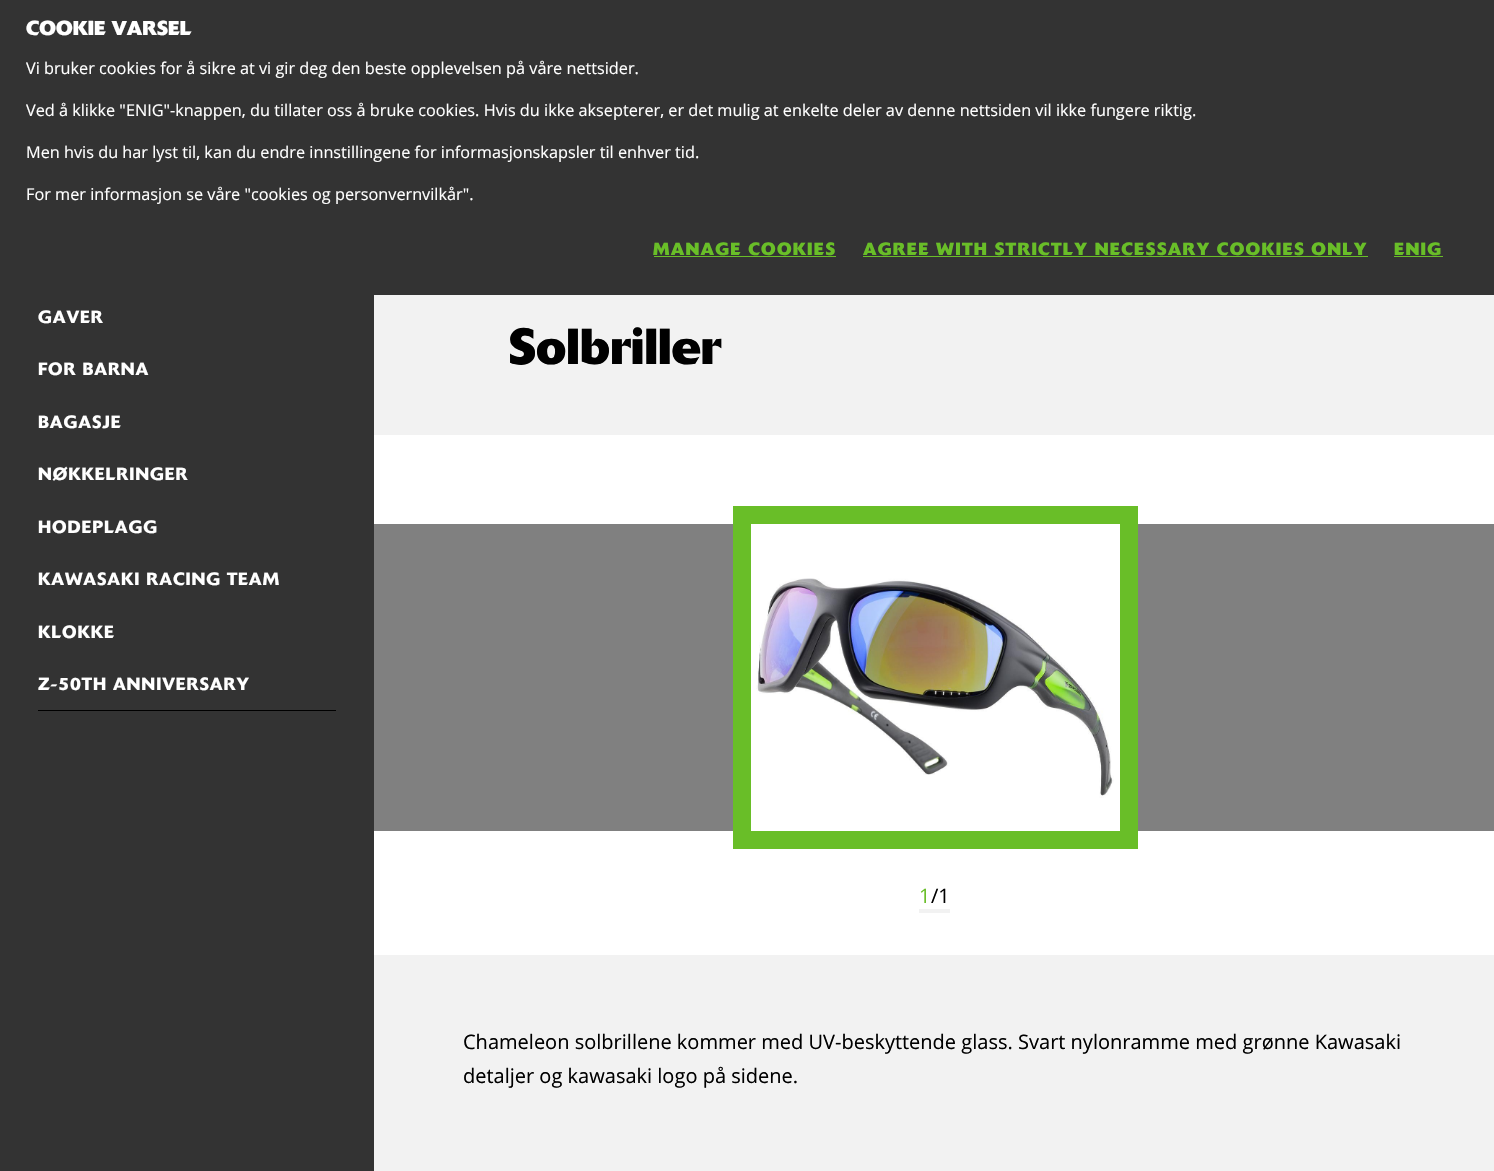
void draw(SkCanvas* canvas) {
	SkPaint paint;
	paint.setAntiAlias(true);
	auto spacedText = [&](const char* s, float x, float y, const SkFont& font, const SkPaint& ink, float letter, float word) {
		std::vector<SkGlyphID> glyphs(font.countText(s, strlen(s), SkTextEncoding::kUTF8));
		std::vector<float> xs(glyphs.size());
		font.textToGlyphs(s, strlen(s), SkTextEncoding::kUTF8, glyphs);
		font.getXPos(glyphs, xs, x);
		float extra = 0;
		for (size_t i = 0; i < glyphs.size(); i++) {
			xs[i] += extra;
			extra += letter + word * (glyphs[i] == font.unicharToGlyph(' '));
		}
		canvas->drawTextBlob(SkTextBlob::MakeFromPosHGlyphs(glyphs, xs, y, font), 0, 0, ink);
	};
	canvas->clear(0xff333333);
	SkFont f1(fontMgr->matchFamilyStyle("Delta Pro", SkFontStyle::Bold()), 20);
	f1.setSubpixel(true);
	paint.setColor(0xffffffff);
	canvas->drawString("COOKIE VARSEL", 26, 35, f1, paint);
	SkFont f2(fontMgr->matchFamilyStyle("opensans", SkFontStyle::Normal()), 16.25);
	f2.setSubpixel(true);
	canvas->drawString("Vi bruker cookies for å sikre at vi gir deg den beste opplevelsen på våre nettsider.", 26, 74, f2, paint);
	canvas->drawString("Ved å klikke \"ENIG\"-knappen, du tillater oss å bruke cookies. Hvis du ikke aksepterer, er det mulig at enkelte deler av denne nettsiden vil ikke fungere riktig.", 26, 116, f2, paint);
	canvas->drawString("Men hvis du har lyst til, kan du endre innstillingene for informasjonskapsler til enhver tid.", 26, 158, f2, paint);
	canvas->drawString("For mer informasjon se våre \"cookies og personvernvilkår\".", 26, 200, f2, paint);
	SkFont f3(fontMgr->matchFamilyStyle("Delta Pro", SkFontStyle::Bold()), 17.5);
	f3.setSubpixel(true);
	paint.setColor(0xff69be28);
	spacedText("MANAGE COOKIES", 653, 255, f3, paint, 1.25, 0);
	canvas->drawRect(SkRect::MakeXYWH(654, 256, 182, 1), paint);
	spacedText("AGREE WITH STRICTLY NECESSARY COOKIES ONLY", 863, 255, f3, paint, 1.25, 0);
	canvas->drawRect(SkRect::MakeXYWH(863, 256, 505, 1), paint);
	spacedText("ENIG", 1394, 255, f3, paint, 1.25, 0);
	canvas->drawRect(SkRect::MakeXYWH(1394, 256, 49, 1), paint);
	SkFont f4(fontMgr->matchFamilyStyle("Delta Pro", SkFontStyle(500, SkFontStyle::kNormal_Width, SkFontStyle::kUpright_Slant)), 17.5);
	f4.setSubpixel(true);
	paint.setColor(0xffffffff);
	spacedText("GAVER", 38, 323, f4, paint, 0.9, 0);
	spacedText("FOR BARNA", 38, 375, f4, paint, 0.9, 0);
	spacedText("BAGASJE", 38, 428, f4, paint, 0.9, 0);
	spacedText("NØKKELRINGER", 38, 480, f4, paint, 0.9, 0);
	spacedText("HODEPLAGG", 38, 533, f4, paint, 0.9, 0);
	spacedText("KAWASAKI RACING TEAM", 38, 585, f4, paint, 0.9, 0);
	spacedText("KLOKKE", 38, 638, f4, paint, 0.9, 0);
	paint.setColor(0xff000000);
	canvas->drawRect(SkRect::MakeXYWH(38, 710, 298, 1), paint);
	paint.setColor(0xffffffff);
	spacedText("Z-50TH ANNIVERSARY", 38, 690, f4, paint, 0.9, 0);
	paint.setColor(0xfff2f2f2);
	canvas->drawRect(SkRect::MakeXYWH(374, 295, 1120, 876), paint);
	SkFont f5(fontMgr->matchFamilyStyle("Delta Pro", SkFontStyle::Bold()), 50);
	f5.setSubpixel(true);
	paint.setColor(0xff000000);
	canvas->drawString("Solbriller", 508, 364, f5, paint);
	paint.setColor(0xffffffff);
	canvas->drawRect(SkRect::MakeXYWH(374, 435, 1120, 520), paint);
	canvas->drawImageRect(SkImages::DeferredFromEncodedData(SkData::MakeFromFileName("img1.png")), SkRect::MakeXYWH(756, 578, 358, 220), SkSamplingOptions());
	paint.setStroke(true);
	paint.setStrokeWidth(18);
	paint.setColor(0xff69be28);
	canvas->drawRect(SkRect::MakeXYWH(742, 515, 387, 325), paint);
	paint.setStroke(false);
	paint.setColor(0xff808080);
	canvas->drawRect(SkRect::MakeXYWH(374, 524, 359, 307), paint);
	canvas->drawRect(SkRect::MakeXYWH(1138, 524, 356, 307), paint);
	paint.setColor(0xfff2f2f2);
	canvas->drawRect(SkRect::MakeXYWH(919, 909, 31, 4), paint);
	SkFont f6(fontMgr->matchFamilyStyle("opensans", SkFontStyle::Normal()), 20);
	f6.setSubpixel(true);
	paint.setColor(0xff69be28);
	canvas->drawString("1", 919, 903, f6, paint);
	paint.setColor(0xff000000);
	canvas->drawString("/1", 931, 903, f6, paint);
	canvas->drawString("Chameleon solbrillene kommer med UV-beskyttende glass. Svart nylonramme med grønne Kawasaki", 463, 1049, f6, paint);
	canvas->drawString("detaljer og kawasaki logo på sidene.", 463, 1083, f6, paint);
}
